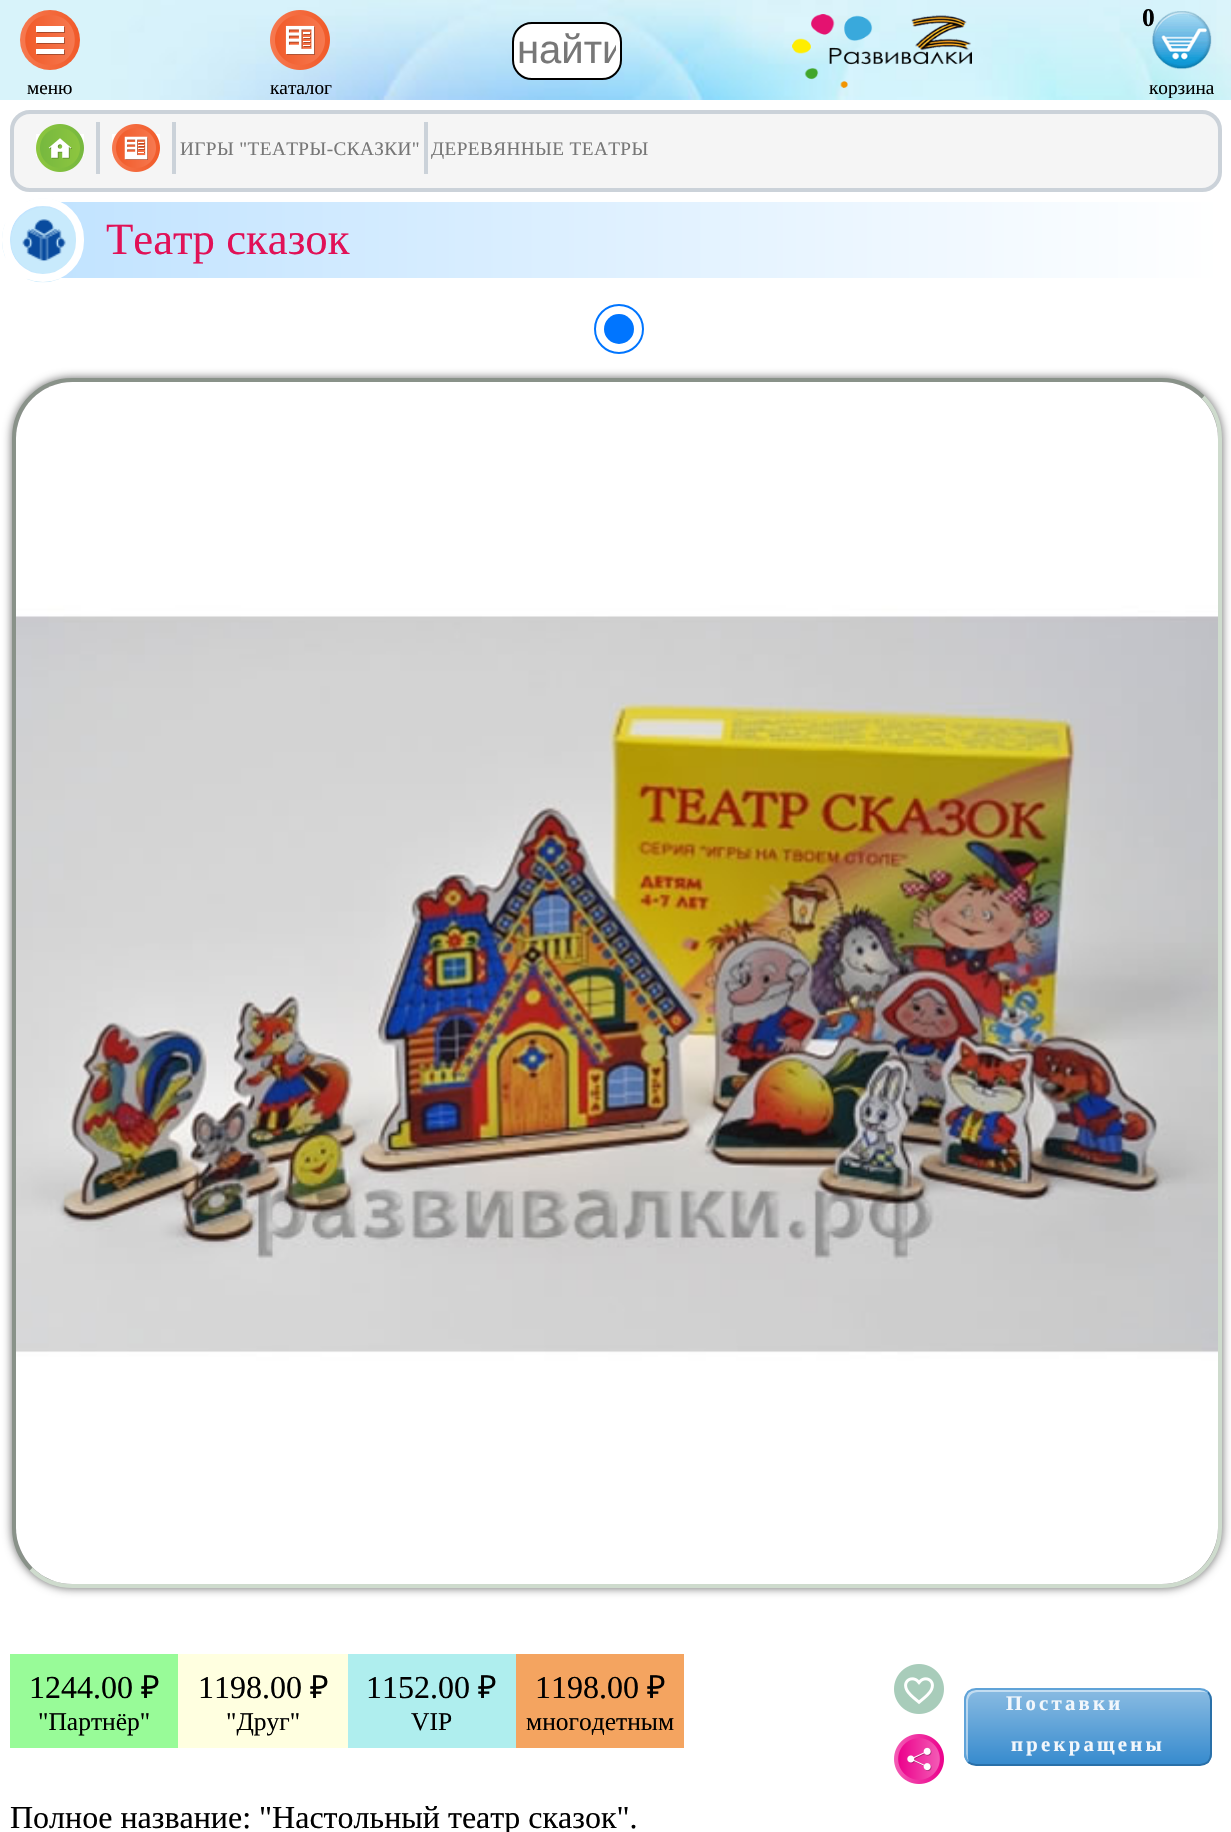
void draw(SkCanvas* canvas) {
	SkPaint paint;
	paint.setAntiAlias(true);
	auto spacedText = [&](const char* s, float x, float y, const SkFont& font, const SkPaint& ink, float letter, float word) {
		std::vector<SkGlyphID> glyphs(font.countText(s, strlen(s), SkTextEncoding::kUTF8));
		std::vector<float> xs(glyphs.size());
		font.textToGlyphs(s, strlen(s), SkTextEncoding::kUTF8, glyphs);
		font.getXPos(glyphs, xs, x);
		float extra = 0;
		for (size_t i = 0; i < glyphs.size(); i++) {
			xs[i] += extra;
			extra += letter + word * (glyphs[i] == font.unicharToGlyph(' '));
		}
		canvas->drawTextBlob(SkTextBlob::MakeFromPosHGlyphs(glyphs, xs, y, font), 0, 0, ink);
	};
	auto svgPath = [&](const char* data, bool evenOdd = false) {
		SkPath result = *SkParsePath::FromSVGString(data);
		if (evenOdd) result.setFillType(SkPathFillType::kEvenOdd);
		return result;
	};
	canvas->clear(0xffffffff);
	canvas->drawImageRect(SkImages::DeferredFromEncodedData(SkData::MakeFromFileName("img1.png")), SkRect::MakeXYWH(0, 0, 1231, 100), SkSamplingOptions());
	paint.setColor(0xffffffff);
	canvas->drawRoundRect(SkRect::MakeXYWH(513, 23, 108, 56), 19, 19, paint);
	paint.setStroke(true);
	paint.setStrokeWidth(2);
	paint.setColor(0xff000000);
	canvas->drawRoundRect(SkRect::MakeXYWH(513, 23, 108, 56), 19, 19, paint);
	canvas->save();
	canvas->clipRect(SkRect::MakeXYWH(518, 28, 98, 46));
	SkFont f1(fontMgr->matchFamilyStyle("Liberation Sans", SkFontStyle::Normal()), 40);
	f1.setSubpixel(true);
	paint.setStroke(false);
	paint.setColor(0xff777777);
	canvas->drawString("найти", 517, 63, f1, paint);
	canvas->restore();
	canvas->drawImageRect(SkImages::DeferredFromEncodedData(SkData::MakeFromFileName("img2.png")), SkRect::MakeXYWH(792, 14, 180, 74), SkSamplingOptions());
	canvas->drawImageRect(SkImages::DeferredFromEncodedData(SkData::MakeFromFileName("img3.png")), SkRect::MakeXYWH(1152, 11, 60, 59), SkSamplingOptions());
	SkFont f2(fontMgr->matchFamilyStyle("Liberation Serif", SkFontStyle::Bold()), 25.5);
	f2.setSubpixel(true);
	paint.setColor(0xff000000);
	canvas->drawString("0", 1142, 26, f2, paint);
	SkFont f3(fontMgr->matchFamilyStyle("Liberation Serif", SkFontStyle::Normal()), 19.25);
	f3.setSubpixel(true);
	canvas->drawString("корзина", 1149, 94, f3, paint);
	{
		const SkColor colors[] = {0xfff67950, 0xfff15a29};
		const float stops[] = {0, 1};
		const SkPoint ends[] = {{20, 40}, {80, 40}};
		paint.setShader(SkGradientShader::MakeLinear(ends, colors, stops, 2, SkTileMode::kClamp));
		paint.setAlpha(255);
	}
	canvas->drawCircle(50, 40, 30, paint);
	{
		const SkColor colors[] = {0xfff15a29, 0xfff67950};
		const float stops[] = {0, 1};
		const SkPoint ends[] = {{25, 40}, {75, 40}};
		paint.setShader(SkGradientShader::MakeLinear(ends, colors, stops, 2, SkTileMode::kClamp));
		paint.setAlpha(255);
	}
	canvas->drawPath(svgPath("M50 65C17 65 17 15 50 15C83 15 83 65 50 65Z"), paint);
	paint.setShader(nullptr);
	paint.setColor(0x4d000000);
	canvas->drawRect(SkRect::MakeXYWH(37, 27, 28, 6), paint);
	paint.setColor(0xffffffff);
	canvas->drawRect(SkRect::MakeXYWH(36, 26, 28, 6), paint);
	paint.setColor(0x4d000000);
	canvas->drawRect(SkRect::MakeXYWH(37, 38, 28, 6), paint);
	paint.setColor(0xffffffff);
	canvas->drawRect(SkRect::MakeXYWH(36, 37, 28, 6), paint);
	paint.setColor(0x4d000000);
	canvas->drawRect(SkRect::MakeXYWH(37, 50, 28, 5), paint);
	paint.setColor(0xffffffff);
	canvas->drawRect(SkRect::MakeXYWH(36, 49, 28, 5), paint);
	paint.setColor(0xff000000);
	canvas->drawString("меню", 27, 94, f3, paint);
	canvas->drawImageRect(SkImages::DeferredFromEncodedData(SkData::MakeFromFileName("img4.png")), SkRect::MakeXYWH(270, 10, 60, 60), SkSamplingOptions());
	canvas->drawString("каталог", 270, 94, f3, paint);
	paint.setColor(0xfff5f5f5);
	canvas->drawRoundRect(SkRect::MakeXYWH(12, 112, 1208, 78), 18, 18, paint);
	paint.setStroke(true);
	paint.setStrokeWidth(4);
	paint.setColor(0xffcbd2d9);
	canvas->drawRoundRect(SkRect::MakeXYWH(12, 112, 1208, 78), 18, 18, paint);
	paint.setStroke(false);
	canvas->drawRect(SkRect::MakeXYWH(96, 122, 4, 52), paint);
	paint.setColor(0xffffffff);
	canvas->drawRect(SkRect::MakeXYWH(36, 134, 48, 22), paint);
	canvas->drawImageRect(SkImages::DeferredFromEncodedData(SkData::MakeFromFileName("img5.png")), SkRect::MakeXYWH(36, 124, 48, 48), SkSamplingOptions());
	paint.setColor(0xffcbd2d9);
	canvas->drawRect(SkRect::MakeXYWH(172, 122, 4, 52), paint);
	paint.setColor(0xffffffff);
	canvas->drawRect(SkRect::MakeXYWH(112, 134, 48, 22), paint);
	canvas->drawImageRect(SkImages::DeferredFromEncodedData(SkData::MakeFromFileName("img6.png")), SkRect::MakeXYWH(112, 124, 48, 48), SkSamplingOptions());
	paint.setColor(0xffcbd2d9);
	canvas->drawRect(SkRect::MakeXYWH(424, 122, 4, 52), paint);
	paint.setColor(0xff777777);
	spacedText("ИГРЫ \"ТЕАТРЫ-СКАЗКИ\"", 180, 155, f3, paint, 0.4, 0);
	spacedText("ДЕРЕВЯННЫЕ ТЕАТРЫ", 431, 155, f3, paint, 0.4, 0);
	{
		const SkColor colors[] = {0xffbfe2ff, 0xffffffff};
		const float stops[] = {0, 1};
		const SkPoint ends[] = {{10, 240}, {1222, 240}};
		paint.setShader(SkGradientShader::MakeLinear(ends, colors, stops, 2, SkTileMode::kClamp));
		paint.setAlpha(255);
	}
	canvas->drawPath(svgPath("M48 202H1222V278H48C27 278 10 261 10 240C10 219 27 202 48 202Z"), paint);
	canvas->drawImageRect(SkImages::DeferredFromEncodedData(SkData::MakeFromFileName("img7.png")), SkRect::MakeXYWH(2, 198, 82, 85), SkSamplingOptions());
	paint.setStroke(true);
	paint.setStrokeWidth(8);
	paint.setShader(nullptr);
	paint.setColor(0xffffffff);
	canvas->drawRoundRect(SkRect::MakeXYWH(6, 202, 74, 76), 37, 37, paint);
	SkFont f4(fontMgr->matchFamilyStyle("Liberation Serif", SkFontStyle::Normal()), 44.75);
	f4.setSubpixel(true);
	paint.setStroke(false);
	paint.setColor(0xffe11157);
	canvas->drawString("Театр сказок", 106, 254, f4, paint);
	paint.setStroke(true);
	paint.setStrokeWidth(2);
	paint.setColor(0xff0075ff);
	canvas->drawCircle(619, 329, 24, paint);
	paint.setStroke(false);
	canvas->drawCircle(619, 329, 15, paint);
	paint.setColor(0xff666666);
	paint.setMaskFilter(SkMaskFilter::MakeBlur(kNormal_SkBlurStyle, 5));
	canvas->drawRoundRect(SkRect::MakeXYWH(12, 378, 1210, 1210), 60, 60, paint);
	paint.setMaskFilter(nullptr);
	paint.setStroke(true);
	paint.setStrokeWidth(4);
	paint.setColor(0xffcedbcd);
	canvas->drawPath(svgPath("M1203 397C1214 408 1220 423 1220 438.5V1527.5C1220 1543 1214 1558 1203 1569C1192 1580 1177 1586 1161.5 1586H72.5C57 1586 42 1580 31 1569"), paint);
	paint.setColor(0xff899289);
	canvas->drawPath(svgPath("M31 1569C20 1558 14 1543 14 1527.5V438.5C14 423 20 408 31 397C42 386 57 380 72.5 380H1161.5C1177 380 1192 386 1203 397"), paint);
	canvas->drawImageRect(SkImages::DeferredFromEncodedData(SkData::MakeFromFileName("img8.png")), SkRect::MakeXYWH(16, 382, 1202, 1202), SkSamplingOptions());
	paint.setStroke(false);
	paint.setColor(0xff98fb98);
	canvas->drawRect(SkRect::MakeXYWH(10, 1654, 168, 94), paint);
	SkFont f5(fontMgr->matchFamilyStyle("Liberation Serif", SkFontStyle::Normal()), 32);
	f5.setSubpixel(true);
	paint.setColor(0xff000000);
	canvas->drawString("1244.00", 29, 1698, f5, paint);
	SkFont f6(fontMgr->matchFamilyStyle("Noto Sans", SkFontStyle::Normal()), 32);
	f6.setSubpixel(true);
	canvas->drawString("₽", 141, 1698, f6, paint);
	SkFont f7(fontMgr->matchFamilyStyle("Liberation Serif", SkFontStyle::Normal()), 25.5);
	f7.setSubpixel(true);
	canvas->drawString("\"Партнёр\"", 38, 1730, f7, paint);
	paint.setColor(0xffffffe0);
	canvas->drawRect(SkRect::MakeXYWH(178, 1654, 170, 94), paint);
	paint.setColor(0xff000000);
	canvas->drawString("1198.00", 198, 1698, f5, paint);
	canvas->drawString("₽", 310, 1698, f6, paint);
	canvas->drawString("\"Друг\"", 226, 1730, f7, paint);
	paint.setColor(0xffafeeee);
	canvas->drawRect(SkRect::MakeXYWH(348, 1654, 168, 94), paint);
	paint.setColor(0xff000000);
	canvas->drawString("1152.00", 366, 1698, f5, paint);
	canvas->drawString("₽", 478, 1698, f6, paint);
	canvas->drawString("VIP", 411, 1730, f7, paint);
	paint.setColor(0xfff4a460);
	canvas->drawRect(SkRect::MakeXYWH(516, 1654, 168, 94), paint);
	paint.setColor(0xff000000);
	canvas->drawString("1198.00", 535, 1698, f5, paint);
	canvas->drawString("₽", 647, 1698, f6, paint);
	canvas->drawString("многодетным", 526, 1730, f7, paint);
	canvas->drawImageRect(SkImages::DeferredFromEncodedData(SkData::MakeFromFileName("img9.png")), SkRect::MakeXYWH(894, 1734, 50, 50), SkSamplingOptions());
	canvas->drawImageRect(SkImages::DeferredFromEncodedData(SkData::MakeFromFileName("img10.png")), SkRect::MakeXYWH(894, 1664, 50, 50), SkSamplingOptions());
	canvas->save();
	canvas->clipPath(svgPath("M976 1688H1200C1206.5 1688 1212 1693.5 1212 1700V1754C1212 1760.5 1206.5 1766 1200 1766H976C969.5 1766 964 1760.5 964 1754V1700C964 1693.5 969.5 1688 976 1688Z"), true);
	{
		const SkColor colors[] = {0xff89bbe2, 0xff60a3d8, 0xff378bce};
		const float stops[] = {0, 0.5, 1};
		const SkPoint ends[] = {{1088, 1690}, {1088, 1764}};
		paint.setShader(SkGradientShader::MakeLinear(ends, colors, stops, 3, SkTileMode::kClamp));
		paint.setAlpha(255);
	}
	canvas->drawRect(SkRect::MakeXYWH(964, 1690, 248, 74), paint);
	canvas->restore();
	paint.setShader(nullptr);
	paint.setColor(0x80ffffff);
	canvas->drawPath(svgPath("M978 1692H1202C1204 1692 1206 1692 1208 1693C1206 1691 1203 1690 1200 1690H976C970 1690 966 1694 966 1700V1754C966 1757 967 1760 969 1762C968 1760 968 1758 968 1756V1702C968 1696 972 1692 978 1692Z"), paint);
	paint.setStroke(true);
	paint.setStrokeWidth(2);
	paint.setColor(0xff2970a9);
	canvas->drawPath(svgPath("M1208 1692C1210 1694.5 1211 1697 1211 1700V1754C1211 1757 1210 1759.5 1208 1762C1205.5 1764 1203 1765 1200 1765H976C973 1765 970.5 1764 968 1762"), paint);
	paint.setColor(0xff60a3d8);
	canvas->drawPath(svgPath("M968 1762C966 1759.5 965 1757 965 1754V1700C965 1697 966 1694.5 968 1692C970.5 1690 973 1689 976 1689H1200C1203 1689 1205.5 1690 1208 1692"), paint);
	SkFont f8(fontMgr->matchFamilyStyle("Liberation Serif", SkFontStyle::Bold()), 20.75);
	f8.setSubpixel(true);
	paint.setStroke(false);
	paint.setColor(0xfff2f7fc);
	spacedText("Поставки", 1006, 1710, f8, paint, 3.25, 0);
	spacedText("прекращены", 1011, 1751, f8, paint, 3.25, 0);
	paint.setColor(0xff000000);
	canvas->drawString("Полное название: \"Настольный театр сказок\".", 10, 1828, f5, paint);
}
